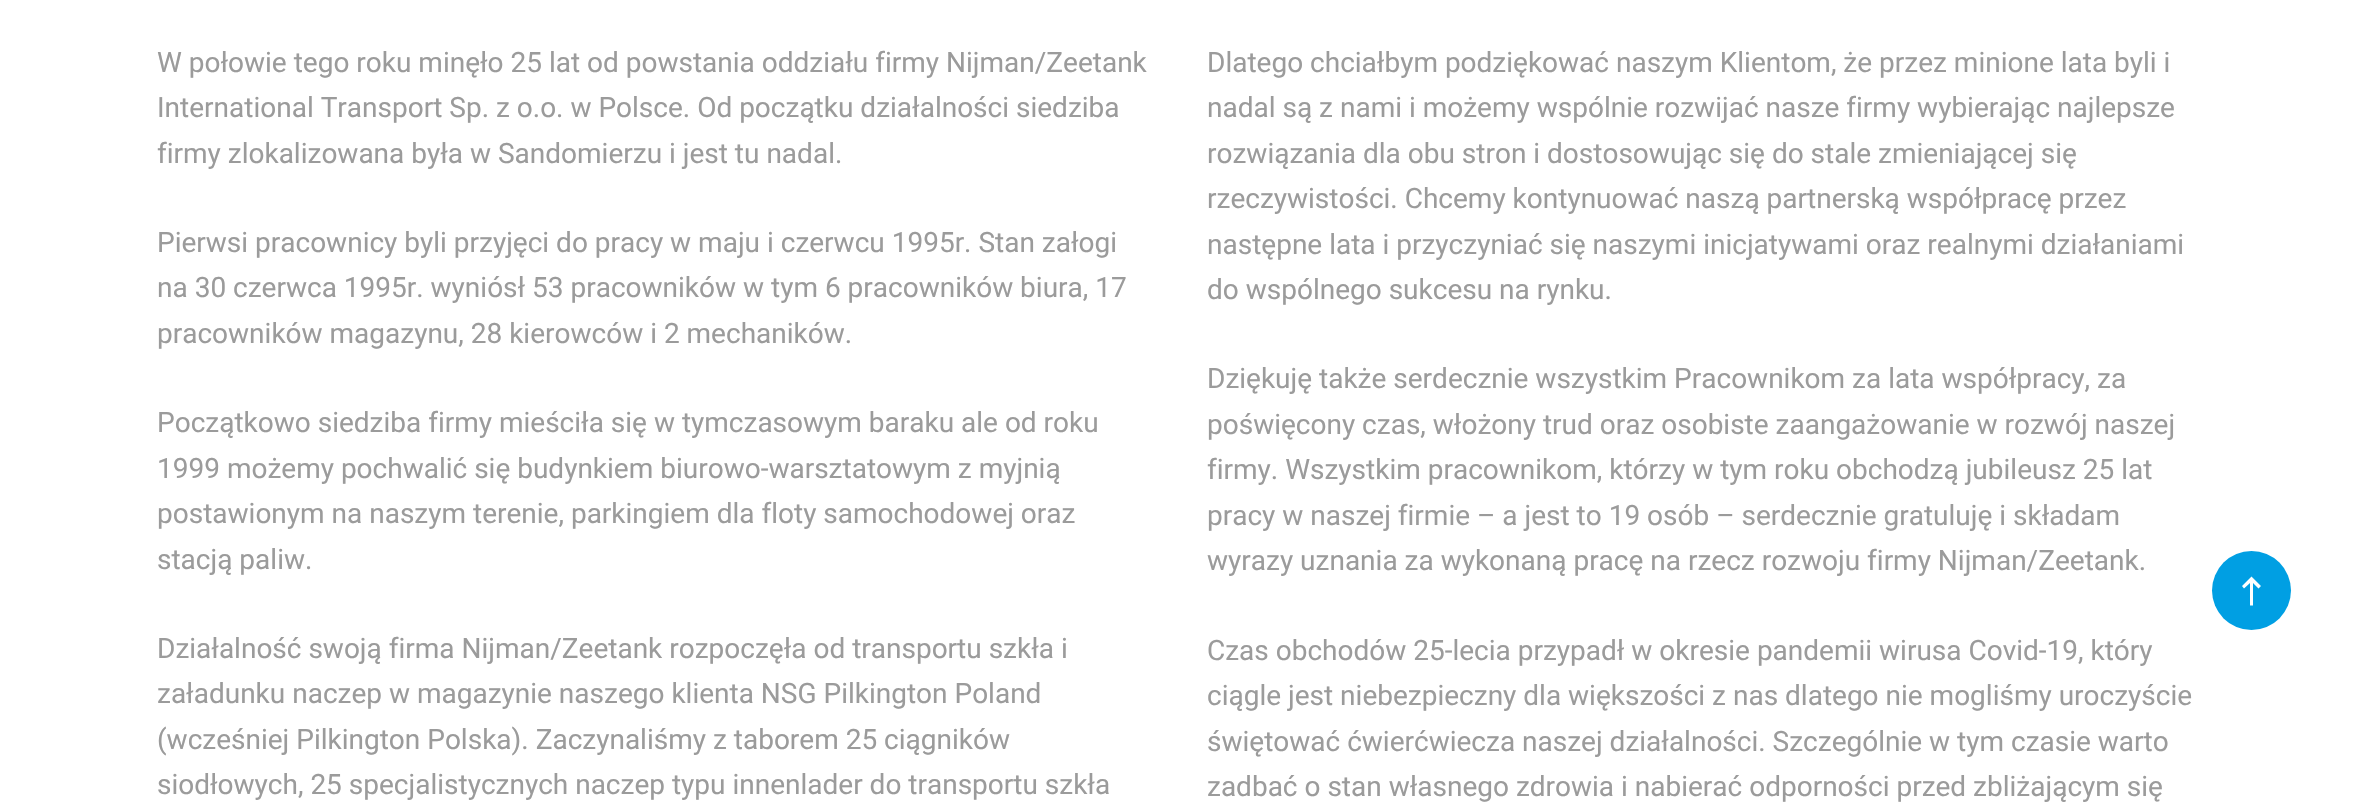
void draw(SkCanvas* canvas) {
	SkPaint paint;
	paint.setAntiAlias(true);
	auto svgPath = [&](const char* data, bool evenOdd = false) {
		SkPath result = *SkParsePath::FromSVGString(data);
		if (evenOdd) result.setFillType(SkPathFillType::kEvenOdd);
		return result;
	};
	canvas->clear(0xffffffff);
	SkFont f1(fontMgr->matchFamilyStyle("Roboto", SkFontStyle::Normal()), 28);
	f1.setSubpixel(true);
	paint.setColor(0xff9b9b9b);
	canvas->drawString("W połowie tego roku minęło 25 lat od powstania oddziału firmy Nijman/Zeetank", 157, 72, f1, paint);
	canvas->drawString("International Transport Sp. z o.o. w Polsce. Od początku działalności siedziba", 157, 117, f1, paint);
	canvas->drawString("firmy zlokalizowana była w Sandomierzu i jest tu nadal.", 157, 163, f1, paint);
	canvas->drawString("Pierwsi pracownicy byli przyjęci do pracy w maju i czerwcu 1995r. Stan załogi", 157, 252, f1, paint);
	canvas->drawString("na 30 czerwca 1995r. wyniósł 53 pracowników w tym 6 pracowników biura, 17", 157, 297, f1, paint);
	canvas->drawString("pracowników magazynu, 28 kierowców i 2 mechaników.", 157, 343, f1, paint);
	canvas->drawString("Początkowo siedziba firmy mieściła się w tymczasowym baraku ale od roku", 157, 432, f1, paint);
	canvas->drawString("1999 możemy pochwalić się budynkiem biurowo-warsztatowym z myjnią", 157, 478, f1, paint);
	canvas->drawString("postawionym na naszym terenie, parkingiem dla floty samochodowej oraz", 157, 523, f1, paint);
	canvas->drawString("stacją paliw.", 157, 569, f1, paint);
	canvas->drawString("Działalność swoją firma Nijman/Zeetank rozpoczęła od transportu szkła i", 157, 658, f1, paint);
	canvas->drawString("załadunku naczep w magazynie naszego klienta NSG Pilkington Poland", 157, 703, f1, paint);
	canvas->drawString("(wcześniej Pilkington Polska). Zaczynaliśmy z taborem 25 ciągników", 157, 749, f1, paint);
	canvas->drawString("siodłowych, 25 specjalistycznych naczep typu innenlader do transportu szkła", 157, 794, f1, paint);
	canvas->drawString("Dlatego chciałbym podziękować naszym Klientom, że przez minione lata byli i", 1207, 72, f1, paint);
	canvas->drawString("nadal są z nami i możemy wspólnie rozwijać nasze firmy wybierając najlepsze", 1207, 117, f1, paint);
	canvas->drawString("rozwiązania dla obu stron i dostosowując się do stale zmieniającej się", 1207, 163, f1, paint);
	canvas->drawString("rzeczywistości. Chcemy kontynuować naszą partnerską współpracę przez", 1207, 208, f1, paint);
	canvas->drawString("następne lata i przyczyniać się naszymi inicjatywami oraz realnymi działaniami", 1207, 254, f1, paint);
	canvas->drawString("do wspólnego sukcesu na rynku.", 1207, 299, f1, paint);
	canvas->drawString("Dziękuję także serdecznie wszystkim Pracownikom za lata współpracy, za", 1207, 388, f1, paint);
	canvas->drawString("poświęcony czas, włożony trud oraz osobiste zaangażowanie w rozwój naszej", 1207, 434, f1, paint);
	canvas->drawString("firmy. Wszystkim pracownikom, którzy w tym roku obchodzą jubileusz 25 lat", 1207, 479, f1, paint);
	canvas->drawString("pracy w naszej firmie – a jest to 19 osób – serdecznie gratuluję i składam", 1207, 525, f1, paint);
	canvas->drawString("wyrazy uznania za wykonaną pracę na rzecz rozwoju firmy Nijman/Zeetank.", 1207, 570, f1, paint);
	canvas->drawString("Czas obchodów 25-lecia przypadł w okresie pandemii wirusa Covid-19, który", 1207, 660, f1, paint);
	canvas->drawString("ciągle jest niebezpieczny dla większości z nas dlatego nie mogliśmy uroczyście", 1207, 705, f1, paint);
	canvas->drawString("świętować ćwierćwiecza naszej działalności. Szczególnie w tym czasie warto", 1207, 751, f1, paint);
	canvas->drawString("zadbać o stan własnego zdrowia i nabierać odporności przed zbliżającym się", 1207, 796, f1, paint);
	paint.setColor(0xff009fe3);
	canvas->drawCircle(2251.5, 590.5, 39.5, paint);
	paint.setColor(0xffffffff);
	canvas->drawPath(svgPath("M2250 605.5V583L2244 588.5L2242 586L2251.5 576.5L2261 586L2258.5 588.5L2253 583V605.5Z"), paint);
}
